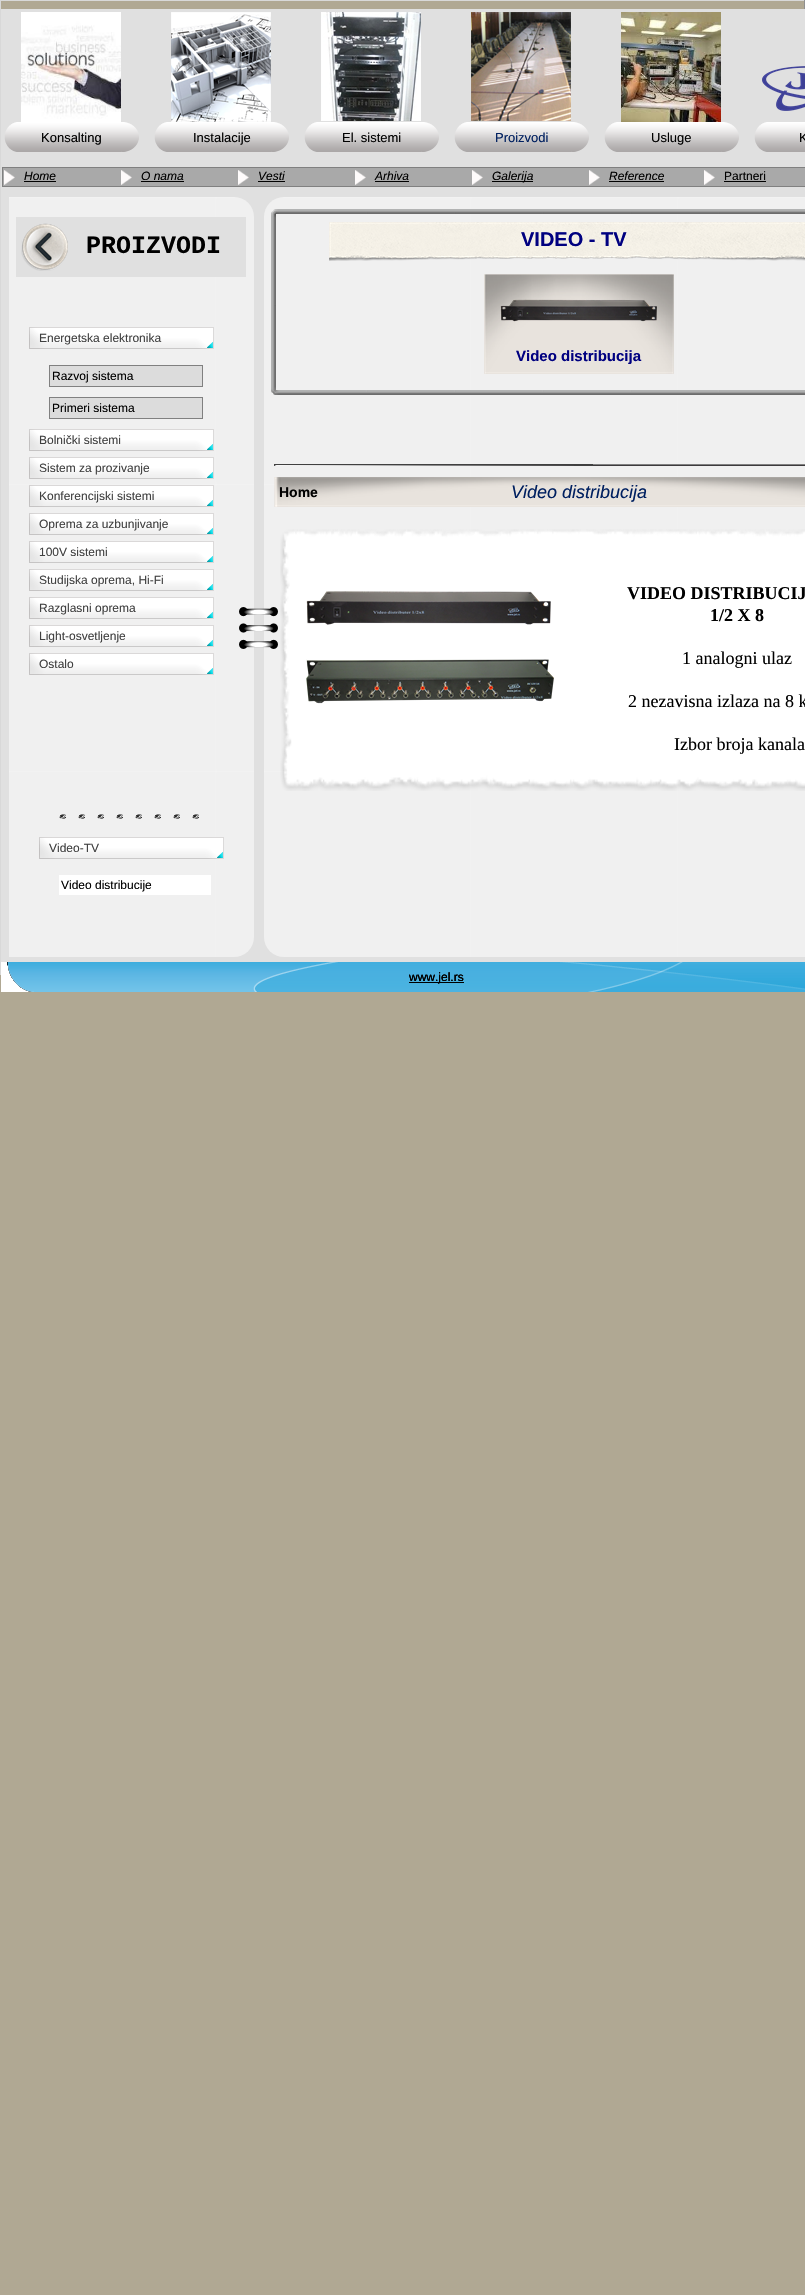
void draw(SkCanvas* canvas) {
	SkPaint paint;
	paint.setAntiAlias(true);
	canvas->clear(0xffb0a893);
	paint.setColor(0xffd8d8d8);
	canvas->drawRect(SkRect::MakeXYWH(0, 0, 805, 1), paint);
	paint.setColor(0xff909090);
	canvas->drawRect(SkRect::MakeXYWH(804, 0, 1, 9), paint);
	paint.setColor(0xffd8d8d8);
	canvas->drawRect(SkRect::MakeXYWH(0, 0, 1, 975), paint);
	paint.setColor(0xffe0e0e0);
	canvas->drawRect(SkRect::MakeXYWH(1, 9, 804, 953), paint);
	canvas->drawImageRect(SkImages::DeferredFromEncodedData(SkData::MakeFromFileName("img1.png")), SkRect::MakeXYWH(21, 12, 100, 110), SkSamplingOptions());
	canvas->drawImageRect(SkImages::DeferredFromEncodedData(SkData::MakeFromFileName("img2.png")), SkRect::MakeXYWH(171, 12, 100, 110), SkSamplingOptions());
	canvas->drawImageRect(SkImages::DeferredFromEncodedData(SkData::MakeFromFileName("img3.png")), SkRect::MakeXYWH(321, 12, 100, 109), SkSamplingOptions());
	canvas->drawImageRect(SkImages::DeferredFromEncodedData(SkData::MakeFromFileName("img4.png")), SkRect::MakeXYWH(471, 12, 100, 109), SkSamplingOptions());
	canvas->drawImageRect(SkImages::DeferredFromEncodedData(SkData::MakeFromFileName("img5.png")), SkRect::MakeXYWH(621, 12, 100, 110), SkSamplingOptions());
	canvas->drawImageRect(SkImages::DeferredFromEncodedData(SkData::MakeFromFileName("img6.png")), SkRect::MakeXYWH(762, 66, 43, 45), SkSamplingOptions());
	canvas->drawImageRect(SkImages::DeferredFromEncodedData(SkData::MakeFromFileName("img7.png")), SkRect::MakeXYWH(14, 122, 5, 1), SkSamplingOptions());
	paint.setColor(0xffffffff);
	canvas->drawRect(SkRect::MakeXYWH(19, 122, 105, 1), paint);
	canvas->drawImageRect(SkImages::DeferredFromEncodedData(SkData::MakeFromFileName("img8.png")), SkRect::MakeXYWH(124, 122, 4, 1), SkSamplingOptions());
	canvas->drawImageRect(SkImages::DeferredFromEncodedData(SkData::MakeFromFileName("img9.png")), SkRect::MakeXYWH(4, 123, 15, 29), SkSamplingOptions());
	canvas->drawImageRect(SkImages::DeferredFromEncodedData(SkData::MakeFromFileName("img10.png")), SkRect::MakeXYWH(19, 123, 105, 29), SkSamplingOptions());
	SkFont f1(fontMgr->matchFamilyStyle("Liberation Sans", SkFontStyle::Normal()), 13);
	f1.setSubpixel(true);
	paint.setColor(0xff000000);
	canvas->drawString("Konsalting", 41, 142, f1, paint);
	canvas->drawImageRect(SkImages::DeferredFromEncodedData(SkData::MakeFromFileName("img11.png")), SkRect::MakeXYWH(124, 123, 15, 29), SkSamplingOptions());
	canvas->drawImageRect(SkImages::DeferredFromEncodedData(SkData::MakeFromFileName("img7.png")), SkRect::MakeXYWH(164, 122, 5, 1), SkSamplingOptions());
	paint.setColor(0xffffffff);
	canvas->drawRect(SkRect::MakeXYWH(169, 122, 105, 1), paint);
	canvas->drawImageRect(SkImages::DeferredFromEncodedData(SkData::MakeFromFileName("img8.png")), SkRect::MakeXYWH(274, 122, 4, 1), SkSamplingOptions());
	canvas->drawImageRect(SkImages::DeferredFromEncodedData(SkData::MakeFromFileName("img9.png")), SkRect::MakeXYWH(154, 123, 15, 29), SkSamplingOptions());
	canvas->drawImageRect(SkImages::DeferredFromEncodedData(SkData::MakeFromFileName("img10.png")), SkRect::MakeXYWH(169, 123, 105, 29), SkSamplingOptions());
	paint.setColor(0xff000000);
	canvas->drawString("Instalacije", 193, 142, f1, paint);
	canvas->drawImageRect(SkImages::DeferredFromEncodedData(SkData::MakeFromFileName("img11.png")), SkRect::MakeXYWH(274, 123, 15, 29), SkSamplingOptions());
	canvas->drawImageRect(SkImages::DeferredFromEncodedData(SkData::MakeFromFileName("img7.png")), SkRect::MakeXYWH(314, 122, 5, 1), SkSamplingOptions());
	paint.setColor(0xffffffff);
	canvas->drawRect(SkRect::MakeXYWH(319, 122, 105, 1), paint);
	canvas->drawImageRect(SkImages::DeferredFromEncodedData(SkData::MakeFromFileName("img8.png")), SkRect::MakeXYWH(424, 122, 4, 1), SkSamplingOptions());
	canvas->drawImageRect(SkImages::DeferredFromEncodedData(SkData::MakeFromFileName("img9.png")), SkRect::MakeXYWH(304, 123, 15, 29), SkSamplingOptions());
	canvas->drawImageRect(SkImages::DeferredFromEncodedData(SkData::MakeFromFileName("img10.png")), SkRect::MakeXYWH(319, 123, 105, 29), SkSamplingOptions());
	paint.setColor(0xff000000);
	canvas->drawString("El. sistemi", 342, 142, f1, paint);
	canvas->drawImageRect(SkImages::DeferredFromEncodedData(SkData::MakeFromFileName("img11.png")), SkRect::MakeXYWH(424, 123, 15, 29), SkSamplingOptions());
	canvas->drawImageRect(SkImages::DeferredFromEncodedData(SkData::MakeFromFileName("img7.png")), SkRect::MakeXYWH(464, 122, 5, 1), SkSamplingOptions());
	paint.setColor(0xffffffff);
	canvas->drawRect(SkRect::MakeXYWH(469, 122, 105, 1), paint);
	canvas->drawImageRect(SkImages::DeferredFromEncodedData(SkData::MakeFromFileName("img8.png")), SkRect::MakeXYWH(574, 122, 4, 1), SkSamplingOptions());
	canvas->drawImageRect(SkImages::DeferredFromEncodedData(SkData::MakeFromFileName("img9.png")), SkRect::MakeXYWH(454, 123, 15, 29), SkSamplingOptions());
	canvas->drawImageRect(SkImages::DeferredFromEncodedData(SkData::MakeFromFileName("img10.png")), SkRect::MakeXYWH(469, 123, 105, 29), SkSamplingOptions());
	paint.setColor(0xff002060);
	canvas->drawString("Proizvodi", 495, 142, f1, paint);
	canvas->drawImageRect(SkImages::DeferredFromEncodedData(SkData::MakeFromFileName("img11.png")), SkRect::MakeXYWH(574, 123, 15, 29), SkSamplingOptions());
	canvas->drawImageRect(SkImages::DeferredFromEncodedData(SkData::MakeFromFileName("img7.png")), SkRect::MakeXYWH(614, 122, 5, 1), SkSamplingOptions());
	paint.setColor(0xffffffff);
	canvas->drawRect(SkRect::MakeXYWH(619, 122, 105, 1), paint);
	canvas->drawImageRect(SkImages::DeferredFromEncodedData(SkData::MakeFromFileName("img8.png")), SkRect::MakeXYWH(724, 122, 4, 1), SkSamplingOptions());
	canvas->drawImageRect(SkImages::DeferredFromEncodedData(SkData::MakeFromFileName("img9.png")), SkRect::MakeXYWH(604, 123, 15, 29), SkSamplingOptions());
	canvas->drawImageRect(SkImages::DeferredFromEncodedData(SkData::MakeFromFileName("img10.png")), SkRect::MakeXYWH(619, 123, 105, 29), SkSamplingOptions());
	paint.setColor(0xff000000);
	canvas->drawString("Usluge", 651, 142, f1, paint);
	canvas->drawImageRect(SkImages::DeferredFromEncodedData(SkData::MakeFromFileName("img11.png")), SkRect::MakeXYWH(724, 123, 15, 29), SkSamplingOptions());
	canvas->drawImageRect(SkImages::DeferredFromEncodedData(SkData::MakeFromFileName("img7.png")), SkRect::MakeXYWH(764, 122, 5, 1), SkSamplingOptions());
	paint.setColor(0xffffffff);
	canvas->drawRect(SkRect::MakeXYWH(769, 122, 36, 1), paint);
	canvas->drawImageRect(SkImages::DeferredFromEncodedData(SkData::MakeFromFileName("img9.png")), SkRect::MakeXYWH(754, 123, 15, 29), SkSamplingOptions());
	canvas->drawImageRect(SkImages::DeferredFromEncodedData(SkData::MakeFromFileName("img12.png")), SkRect::MakeXYWH(769, 123, 36, 29), SkSamplingOptions());
	paint.setColor(0xff000000);
	canvas->drawString("K", 799, 142, f1, paint);
	paint.setColor(0xffa9a9a9);
	canvas->drawRect(SkRect::MakeXYWH(2.5, 167.5, 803, 19), paint);
	paint.setStroke(true);
	paint.setStrokeWidth(1);
	paint.setColor(0xff808080);
	canvas->drawRect(SkRect::MakeXYWH(2.5, 167.5, 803, 19), paint);
	canvas->drawImageRect(SkImages::DeferredFromEncodedData(SkData::MakeFromFileName("img13.png")), SkRect::MakeXYWH(4, 170, 11, 15), SkSamplingOptions());
	SkFont f2(fontMgr->matchFamilyStyle("Liberation Sans", SkFontStyle::Italic()), 12);
	f2.setSubpixel(true);
	paint.setStroke(false);
	paint.setColor(0xff000000);
	canvas->drawString("Home", 24, 180, f2, paint);
	canvas->drawRect(SkRect::MakeXYWH(24, 181, 32, 1), paint);
	canvas->drawImageRect(SkImages::DeferredFromEncodedData(SkData::MakeFromFileName("img13.png")), SkRect::MakeXYWH(121, 170, 11, 15), SkSamplingOptions());
	canvas->drawString("O nama", 141, 180, f2, paint);
	canvas->drawRect(SkRect::MakeXYWH(141, 181, 43, 1), paint);
	canvas->drawImageRect(SkImages::DeferredFromEncodedData(SkData::MakeFromFileName("img13.png")), SkRect::MakeXYWH(238, 170, 11, 15), SkSamplingOptions());
	canvas->drawString("Vesti", 258, 180, f2, paint);
	canvas->drawRect(SkRect::MakeXYWH(258, 181, 27, 1), paint);
	canvas->drawImageRect(SkImages::DeferredFromEncodedData(SkData::MakeFromFileName("img13.png")), SkRect::MakeXYWH(355, 170, 11, 15), SkSamplingOptions());
	canvas->drawString("Arhiva", 375, 180, f2, paint);
	canvas->drawRect(SkRect::MakeXYWH(375, 181, 34, 1), paint);
	canvas->drawImageRect(SkImages::DeferredFromEncodedData(SkData::MakeFromFileName("img13.png")), SkRect::MakeXYWH(472, 170, 11, 15), SkSamplingOptions());
	canvas->drawRect(SkRect::MakeXYWH(492, 181, 41, 1), paint);
	canvas->drawString("Galerija", 492, 180, f2, paint);
	canvas->drawImageRect(SkImages::DeferredFromEncodedData(SkData::MakeFromFileName("img13.png")), SkRect::MakeXYWH(589, 170, 11, 15), SkSamplingOptions());
	canvas->drawString("Reference", 609, 180, f2, paint);
	canvas->drawRect(SkRect::MakeXYWH(609, 181, 55, 1), paint);
	canvas->drawImageRect(SkImages::DeferredFromEncodedData(SkData::MakeFromFileName("img13.png")), SkRect::MakeXYWH(704, 170, 11, 15), SkSamplingOptions());
	SkFont f3(fontMgr->matchFamilyStyle("Liberation Sans", SkFontStyle::Normal()), 12);
	f3.setSubpixel(true);
	canvas->drawString("Partneri", 724, 180, f3, paint);
	canvas->drawRect(SkRect::MakeXYWH(724, 181, 42, 1), paint);
	canvas->drawImageRect(SkImages::DeferredFromEncodedData(SkData::MakeFromFileName("img14.png")), SkRect::MakeXYWH(9, 197, 245, 760), SkSamplingOptions());
	canvas->drawImageRect(SkImages::DeferredFromEncodedData(SkData::MakeFromFileName("img15.png")), SkRect::MakeXYWH(264, 197, 541, 760), SkSamplingOptions());
	paint.setColor(0xffe0e0e0);
	canvas->drawRect(SkRect::MakeXYWH(16, 217, 230, 60), paint);
	canvas->drawImageRect(SkImages::DeferredFromEncodedData(SkData::MakeFromFileName("img16.png")), SkRect::MakeXYWH(271, 209, 8, 8), SkSamplingOptions());
	canvas->drawImageRect(SkImages::DeferredFromEncodedData(SkData::MakeFromFileName("img17.png")), SkRect::MakeXYWH(279, 209, 526, 5), SkSamplingOptions());
	canvas->drawImageRect(SkImages::DeferredFromEncodedData(SkData::MakeFromFileName("img18.png")), SkRect::MakeXYWH(271, 217, 5, 170), SkSamplingOptions());
	canvas->drawImageRect(SkImages::DeferredFromEncodedData(SkData::MakeFromFileName("img19.png")), SkRect::MakeXYWH(271, 387, 8, 8), SkSamplingOptions());
	canvas->drawImageRect(SkImages::DeferredFromEncodedData(SkData::MakeFromFileName("img20.png")), SkRect::MakeXYWH(279, 390, 526, 5), SkSamplingOptions());
	canvas->drawImageRect(SkImages::DeferredFromEncodedData(SkData::MakeFromFileName("img21.png")), SkRect::MakeXYWH(21, 223, 47, 48), SkSamplingOptions());
	canvas->drawImageRect(SkImages::DeferredFromEncodedData(SkData::MakeFromFileName("img22.png")), SkRect::MakeXYWH(329, 222, 476, 39), SkSamplingOptions());
	SkFont f4(fontMgr->matchFamilyStyle("Liberation Mono", SkFontStyle::Bold()), 25);
	f4.setSubpixel(true);
	paint.setColor(0xff000000);
	canvas->drawString("PROIZVODI", 86, 253, f4, paint);
	SkFont f5(fontMgr->matchFamilyStyle("Liberation Sans", SkFontStyle::Bold()), 20);
	f5.setSubpixel(true);
	paint.setColor(0xff000080);
	canvas->drawString("VIDEO - TV", 521, 246, f5, paint);
	canvas->drawImageRect(SkImages::DeferredFromEncodedData(SkData::MakeFromFileName("img23.png")), SkRect::MakeXYWH(484, 274, 190, 100), SkSamplingOptions());
	canvas->drawImageRect(SkImages::DeferredFromEncodedData(SkData::MakeFromFileName("img24.png")), SkRect::MakeXYWH(500, 299, 157, 23), SkSamplingOptions());
	canvas->drawImageRect(SkImages::DeferredFromEncodedData(SkData::MakeFromFileName("img25.png")), SkRect::MakeXYWH(29, 327, 185, 22), SkSamplingOptions());
	paint.setColor(0xff404040);
	canvas->drawString("Energetska elektronika", 39, 342, f3, paint);
	paint.setColor(0xffdcdcdc);
	canvas->drawRect(SkRect::MakeXYWH(49.5, 365.5, 153, 21), paint);
	paint.setStroke(true);
	paint.setColor(0xff808080);
	canvas->drawRect(SkRect::MakeXYWH(49.5, 365.5, 153, 21), paint);
	paint.setStroke(false);
	paint.setColor(0xff000000);
	canvas->drawString("Razvoj sistema", 52, 380, f3, paint);
	paint.setColor(0xffdcdcdc);
	canvas->drawRect(SkRect::MakeXYWH(49.5, 397.5, 153, 21), paint);
	paint.setStroke(true);
	paint.setColor(0xff808080);
	canvas->drawRect(SkRect::MakeXYWH(49.5, 397.5, 153, 21), paint);
	paint.setStroke(false);
	paint.setColor(0xff000000);
	canvas->drawString("Primeri sistema", 52, 412, f3, paint);
	canvas->drawImageRect(SkImages::DeferredFromEncodedData(SkData::MakeFromFileName("img25.png")), SkRect::MakeXYWH(29, 429, 185, 22), SkSamplingOptions());
	paint.setColor(0xff404040);
	canvas->drawString("Bolnički sistemi", 39, 444, f3, paint);
	canvas->drawImageRect(SkImages::DeferredFromEncodedData(SkData::MakeFromFileName("img25.png")), SkRect::MakeXYWH(29, 457, 185, 22), SkSamplingOptions());
	canvas->drawString("Sistem za prozivanje", 39, 472, f3, paint);
	canvas->drawImageRect(SkImages::DeferredFromEncodedData(SkData::MakeFromFileName("img25.png")), SkRect::MakeXYWH(29, 485, 185, 22), SkSamplingOptions());
	canvas->drawString("Konferencijski sistemi", 39, 500, f3, paint);
	canvas->drawImageRect(SkImages::DeferredFromEncodedData(SkData::MakeFromFileName("img25.png")), SkRect::MakeXYWH(29, 513, 185, 22), SkSamplingOptions());
	canvas->drawString("Oprema za uzbunjivanje", 39, 528, f3, paint);
	canvas->drawImageRect(SkImages::DeferredFromEncodedData(SkData::MakeFromFileName("img25.png")), SkRect::MakeXYWH(29, 541, 185, 22), SkSamplingOptions());
	canvas->drawString("100V sistemi", 39, 556, f3, paint);
	canvas->drawImageRect(SkImages::DeferredFromEncodedData(SkData::MakeFromFileName("img25.png")), SkRect::MakeXYWH(29, 569, 185, 22), SkSamplingOptions());
	canvas->drawString("Studijska oprema, Hi-Fi", 39, 584, f3, paint);
	canvas->drawImageRect(SkImages::DeferredFromEncodedData(SkData::MakeFromFileName("img25.png")), SkRect::MakeXYWH(29, 597, 185, 22), SkSamplingOptions());
	canvas->drawString("Razglasni oprema", 39, 612, f3, paint);
	canvas->drawImageRect(SkImages::DeferredFromEncodedData(SkData::MakeFromFileName("img25.png")), SkRect::MakeXYWH(29, 625, 185, 22), SkSamplingOptions());
	canvas->drawString("Light-osvetljenje", 39, 640, f3, paint);
	canvas->drawImageRect(SkImages::DeferredFromEncodedData(SkData::MakeFromFileName("img25.png")), SkRect::MakeXYWH(29, 653, 185, 22), SkSamplingOptions());
	canvas->drawString("Ostalo", 39, 668, f3, paint);
	SkFont f6(fontMgr->matchFamilyStyle("Liberation Sans", SkFontStyle::Bold()), 15);
	f6.setSubpixel(true);
	paint.setColor(0xff000080);
	canvas->drawString("Video distribucija", 516, 361, f6, paint);
	paint.setColor(0xff404040);
	canvas->drawRect(SkRect::MakeXYWH(274, 464, 319, 2), paint);
	canvas->drawImageRect(SkImages::DeferredFromEncodedData(SkData::MakeFromFileName("img26.png")), SkRect::MakeXYWH(274, 465, 300, 1), SkSamplingOptions());
	paint.setColor(0xff808080);
	canvas->drawRect(SkRect::MakeXYWH(593, 464, 212, 1), paint);
	paint.setColor(0xff3c3a3c);
	canvas->drawRect(SkRect::MakeXYWH(593, 465, 212, 1), paint);
	canvas->drawImageRect(SkImages::DeferredFromEncodedData(SkData::MakeFromFileName("img27.png")), SkRect::MakeXYWH(274, 477, 531, 30), SkSamplingOptions());
	SkFont f7(fontMgr->matchFamilyStyle("Liberation Sans", SkFontStyle::Bold()), 14);
	f7.setSubpixel(true);
	paint.setColor(0xff000000);
	canvas->drawString("Home", 279, 497, f7, paint);
	SkFont f8(fontMgr->matchFamilyStyle("Liberation Sans", SkFontStyle::Italic()), 18);
	f8.setSubpixel(true);
	paint.setColor(0xff002060);
	canvas->drawString("Video distribucija", 511, 498, f8, paint);
	canvas->drawImageRect(SkImages::DeferredFromEncodedData(SkData::MakeFromFileName("img28.png")), SkRect::MakeXYWH(280, 529, 525, 262), SkSamplingOptions());
	canvas->drawImageRect(SkImages::DeferredFromEncodedData(SkData::MakeFromFileName("img29.png")), SkRect::MakeXYWH(239, 607, 39, 42), SkSamplingOptions());
	canvas->drawImageRect(SkImages::DeferredFromEncodedData(SkData::MakeFromFileName("img30.png")), SkRect::MakeXYWH(306, 591, 245, 34), SkSamplingOptions());
	SkFont f9(fontMgr->matchFamilyStyle("Liberation Serif", SkFontStyle::Bold()), 18);
	f9.setSubpixel(true);
	paint.setColor(0xff000000);
	canvas->drawString("VIDEO DISTRIBUCIJ", 627, 599, f9, paint);
	canvas->drawString("1/2 X 8", 710, 621, f9, paint);
	SkFont f10(fontMgr->matchFamilyStyle("Liberation Serif", SkFontStyle::Normal()), 18);
	f10.setSubpixel(true);
	canvas->drawString("1 analogni ulaz", 682, 664, f10, paint);
	canvas->drawString("2 nezavisna izlaza na 8 k", 628, 707, f10, paint);
	canvas->drawString("Izbor broja kanala", 674, 750, f10, paint);
	canvas->drawImageRect(SkImages::DeferredFromEncodedData(SkData::MakeFromFileName("img31.png")), SkRect::MakeXYWH(306, 659, 248, 45), SkSamplingOptions());
	canvas->drawImageRect(SkImages::DeferredFromEncodedData(SkData::MakeFromFileName("img32.png")), SkRect::MakeXYWH(59, 814, 140, 5), SkSamplingOptions());
	canvas->drawImageRect(SkImages::DeferredFromEncodedData(SkData::MakeFromFileName("img25.png")), SkRect::MakeXYWH(39, 837, 185, 22), SkSamplingOptions());
	paint.setColor(0xff404040);
	canvas->drawString("Video-TV", 49, 852, f3, paint);
	paint.setColor(0xffffffff);
	canvas->drawRect(SkRect::MakeXYWH(59, 875, 152, 20), paint);
	paint.setColor(0xff000000);
	canvas->drawString("Video distribucije", 61, 889, f3, paint);
	paint.setColor(0xffffffff);
	canvas->drawRect(SkRect::MakeXYWH(1, 962, 6, 30), paint);
	canvas->drawImageRect(SkImages::DeferredFromEncodedData(SkData::MakeFromFileName("img33.png")), SkRect::MakeXYWH(7, 962, 798, 30), SkSamplingOptions());
	paint.setColor(0xff000000);
	canvas->drawRect(SkRect::MakeXYWH(409, 982, 55, 1), paint);
	canvas->drawString("www.jel.rs", 409, 981, f3, paint);
	canvas->drawString("www.jel.rs", 409, 981, f3, paint);
}
